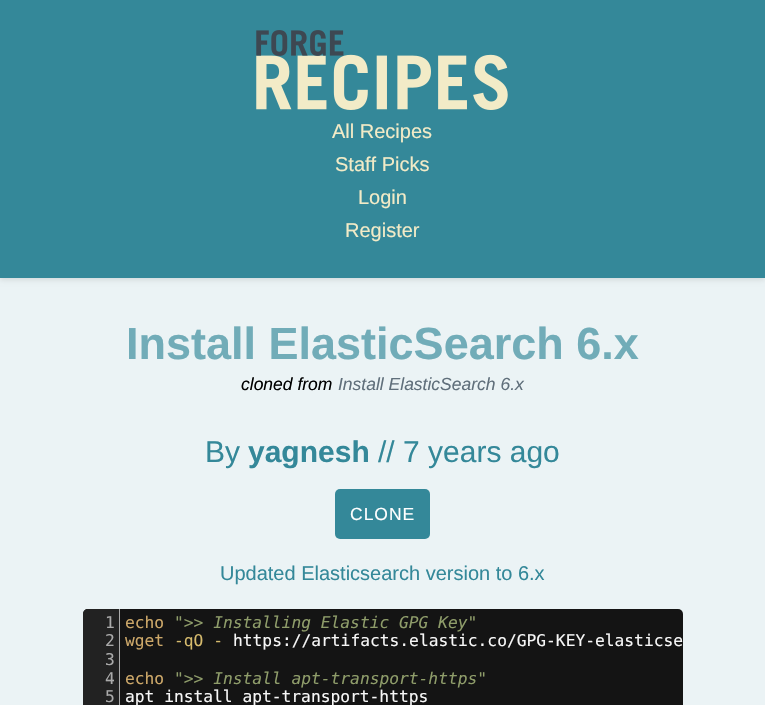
void draw(SkCanvas* canvas) {
	SkPaint paint;
	paint.setAntiAlias(true);
	auto spacedText = [&](const char* s, float x, float y, const SkFont& font, const SkPaint& ink, float letter, float word) {
		std::vector<SkGlyphID> glyphs(font.countText(s, strlen(s), SkTextEncoding::kUTF8));
		std::vector<float> xs(glyphs.size());
		font.textToGlyphs(s, strlen(s), SkTextEncoding::kUTF8, glyphs);
		font.getXPos(glyphs, xs, x);
		float extra = 0;
		for (size_t i = 0; i < glyphs.size(); i++) {
			xs[i] += extra;
			extra += letter + word * (glyphs[i] == font.unicharToGlyph(' '));
		}
		canvas->drawTextBlob(SkTextBlob::MakeFromPosHGlyphs(glyphs, xs, y, font), 0, 0, ink);
	};
	auto svgPath = [&](const char* data, bool evenOdd = false) {
		SkPath result = *SkParsePath::FromSVGString(data);
		if (evenOdd) result.setFillType(SkPathFillType::kEvenOdd);
		return result;
	};
	canvas->clear(0xffebf3f5);
	paint.setColor(0x1a000000);
	paint.setMaskFilter(SkMaskFilter::MakeBlur(kNormal_SkBlurStyle, 2.5));
	canvas->drawRect(SkRect::MakeXYWH(0, 3, 765, 277), paint);
	paint.setMaskFilter(nullptr);
	paint.setColor(0xff348899);
	canvas->drawRect(SkRect::MakeXYWH(0, 0, 765, 278), paint);
	canvas->drawImageRect(SkImages::DeferredFromEncodedData(SkData::MakeFromFileName("img1.png")), SkRect::MakeXYWH(256, 30, 252, 80), SkSamplingOptions());
	SkFont f1(fontMgr->matchFamilyStyle("Liberation Sans", SkFontStyle::Normal()), 20);
	f1.setSubpixel(true);
	paint.setColor(0xfff2ebc7);
	canvas->drawString("All Recipes", 332, 138, f1, paint);
	canvas->drawString("Staff Picks", 335, 171, f1, paint);
	canvas->drawString("Login", 358, 204, f1, paint);
	canvas->drawString("Register", 345, 237, f1, paint);
	SkFont f2(fontMgr->matchFamilyStyle("Liberation Sans", SkFontStyle::Bold()), 45);
	f2.setSubpixel(true);
	paint.setColor(0xff71acb8);
	canvas->drawString("Install ElasticSearch 6.x", 126, 359, f2, paint);
	SkFont f3(fontMgr->matchFamilyStyle("Liberation Sans", SkFontStyle::Italic()), 17.5);
	f3.setSubpixel(true);
	paint.setColor(0xff000000);
	canvas->drawString("cloned from", 241, 390, f3, paint);
	paint.setColor(0xff606f7b);
	canvas->drawString("Install ElasticSearch 6.x", 338, 390, f3, paint);
	SkFont f4(fontMgr->matchFamilyStyle("Liberation Sans", SkFontStyle::Normal()), 30);
	f4.setSubpixel(true);
	paint.setColor(0xff348899);
	canvas->drawString("By", 205, 462, f4, paint);
	SkFont f5(fontMgr->matchFamilyStyle("Liberation Sans", SkFontStyle::Bold()), 30);
	f5.setSubpixel(true);
	canvas->drawString("yagnesh", 248, 462, f5, paint);
	canvas->drawString("// 7 years ago", 378, 462, f4, paint);
	canvas->drawRoundRect(SkRect::MakeXYWH(335, 489, 95, 50), 5, 5, paint);
	SkFont f6(fontMgr->matchFamilyStyle("Liberation Sans", SkFontStyle::Normal()), 17.5);
	f6.setSubpixel(true);
	paint.setColor(0xffffffff);
	spacedText("CLONE", 350, 520, f6, paint, 1, 0);
	paint.setColor(0xff348899);
	canvas->drawString("Updated Elasticsearch version to 6.x", 220, 580, f1, paint);
	paint.setColor(0xff141414);
	canvas->drawRoundRect(SkRect::MakeXYWH(83, 609, 600, 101), 5, 5, paint);
	paint.setColor(0xff222222);
	canvas->drawPath(svgPath("M88 609H119V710H88C85 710 83 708 83 705V614C83 611 85 609 88 609Z"), paint);
	paint.setColor(0xffaaaaaa);
	canvas->drawRect(SkRect::MakeXYWH(119, 609, 1, 96), paint);
	SkFont f7(fontMgr->matchFamilyStyle("DejaVu Sans Mono", SkFontStyle::Normal()), 16.25);
	f7.setSubpixel(true);
	canvas->drawString("1", 105, 628, f7, paint);
	paint.setColor(0xffcda869);
	canvas->drawString("echo", 125, 628, f7, paint);
	SkFont f8(fontMgr->matchFamilyStyle("DejaVu Sans Mono", SkFontStyle::Italic()), 16.25);
	f8.setSubpixel(true);
	paint.setColor(0xff8f9d6a);
	canvas->drawString("\">> Installing Elastic GPG Key\"", 174, 628, f8, paint);
	paint.setColor(0xffaaaaaa);
	canvas->drawString("2", 105, 646, f7, paint);
	paint.setColor(0xffcda869);
	canvas->drawString("wget", 125, 646, f7, paint);
	paint.setColor(0xffd6bb6d);
	canvas->drawString("-qO -", 174, 646, f7, paint);
	paint.setColor(0xfff7f7f7);
	canvas->drawString("https://artifacts.elastic.co/GPG-KEY-elasticse", 233, 646, f7, paint);
	paint.setColor(0xffaaaaaa);
	canvas->drawString("3", 105, 665, f7, paint);
	canvas->drawString("4", 105, 684, f7, paint);
	paint.setColor(0xffcda869);
	canvas->drawString("echo", 125, 684, f7, paint);
	paint.setColor(0xff8f9d6a);
	canvas->drawString("\">> Install apt-transport-https\"", 174, 684, f8, paint);
	paint.setColor(0xffaaaaaa);
	canvas->drawString("5", 105, 702, f7, paint);
	paint.setColor(0xfff7f7f7);
	canvas->drawString("apt install apt-transport-https", 125, 702, f7, paint);
}
